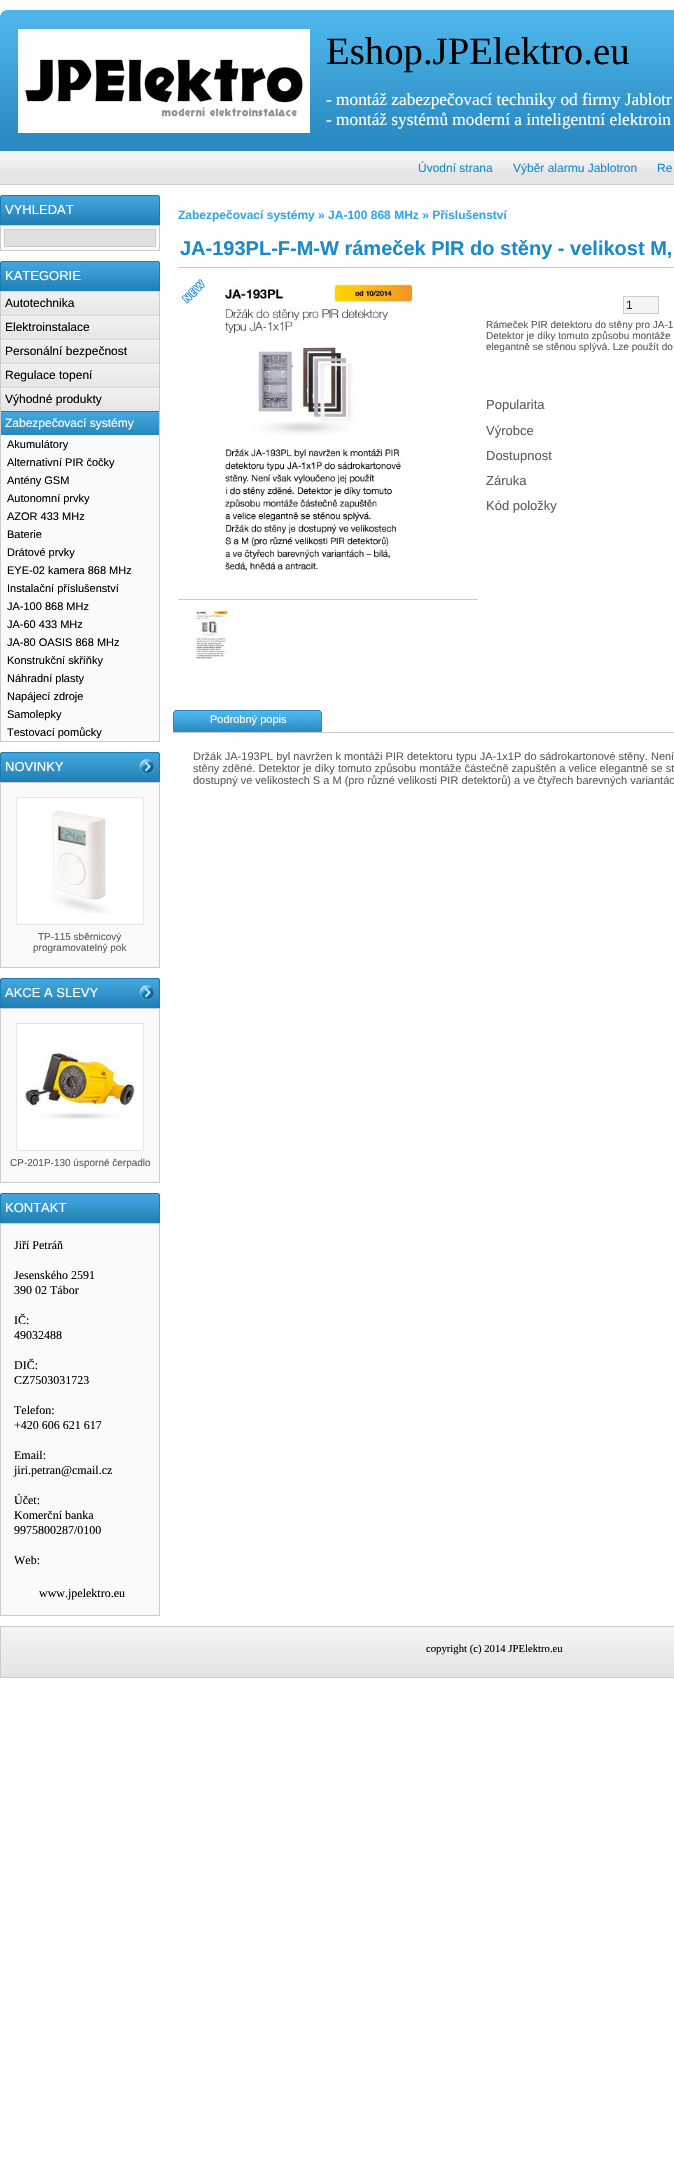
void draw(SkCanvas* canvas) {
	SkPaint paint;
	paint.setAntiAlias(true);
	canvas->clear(0xffffffff);
	canvas->drawImageRect(SkImages::DeferredFromEncodedData(SkData::MakeFromFileName("img1.png")), SkRect::MakeXYWH(0, 10, 674, 175), SkSamplingOptions());
	canvas->drawImageRect(SkImages::DeferredFromEncodedData(SkData::MakeFromFileName("img2.png")), SkRect::MakeXYWH(0, 10, 5, 5), SkSamplingOptions());
	canvas->drawImageRect(SkImages::DeferredFromEncodedData(SkData::MakeFromFileName("img3.png")), SkRect::MakeXYWH(18, 29, 292, 104), SkSamplingOptions());
	SkFont f1(fontMgr->matchFamilyStyle("Liberation Serif", SkFontStyle::Normal()), 38.75);
	f1.setSubpixel(true);
	paint.setColor(0xff000000);
	canvas->drawString("Eshop.JPElektro.eu", 326, 64, f1, paint);
	SkFont f2(fontMgr->matchFamilyStyle("Liberation Serif", SkFontStyle::Normal()), 17.3);
	f2.setSubpixel(true);
	paint.setColor(0xffffffff);
	canvas->drawString("- montáž zabezpečovací techniky od firmy Jablotr", 326, 105, f2, paint);
	canvas->drawString("- montáž systémů moderní a inteligentní elektroin", 326, 125, f2, paint);
	SkFont f3(fontMgr->matchFamilyStyle("Liberation Sans", SkFontStyle::Normal()), 12);
	f3.setSubpixel(true);
	paint.setColor(0xff188bc8);
	canvas->drawString("Úvodní strana", 418, 172, f3, paint);
	canvas->drawString("Výběr alarmu Jablotron", 513, 172, f3, paint);
	canvas->drawString("Re", 657, 172, f3, paint);
	canvas->drawImageRect(SkImages::DeferredFromEncodedData(SkData::MakeFromFileName("img4.png")), SkRect::MakeXYWH(0, 195, 160, 30), SkSamplingOptions());
	canvas->drawImageRect(SkImages::DeferredFromEncodedData(SkData::MakeFromFileName("img5.png")), SkRect::MakeXYWH(0, 195, 1, 29), SkSamplingOptions());
	canvas->drawImageRect(SkImages::DeferredFromEncodedData(SkData::MakeFromFileName("img6.png")), SkRect::MakeXYWH(156, 195, 4, 29), SkSamplingOptions());
	SkFont f4(fontMgr->matchFamilyStyle("Liberation Sans", SkFontStyle::Normal()), 13);
	f4.setSubpixel(true);
	paint.setColor(0xffffffff);
	canvas->drawString("VYHLEDAT", 5, 214, f4, paint);
	paint.setColor(0xfffafafa);
	canvas->drawRect(SkRect::MakeXYWH(1, 226, 158, 24), paint);
	paint.setColor(0xffcccccc);
	canvas->drawRect(SkRect::MakeXYWH(0, 225, 160, 1), paint);
	canvas->drawRect(SkRect::MakeXYWH(159, 225, 1, 26), paint);
	canvas->drawRect(SkRect::MakeXYWH(0, 250, 160, 1), paint);
	canvas->drawRect(SkRect::MakeXYWH(0, 225, 1, 26), paint);
	paint.setColor(0xffe0e0e0);
	canvas->drawRect(SkRect::MakeXYWH(4.5, 229.5, 151, 17), paint);
	paint.setStroke(true);
	paint.setStrokeWidth(1);
	paint.setColor(0xffcccccc);
	canvas->drawRect(SkRect::MakeXYWH(4.5, 229.5, 151, 17), paint);
	canvas->drawImageRect(SkImages::DeferredFromEncodedData(SkData::MakeFromFileName("img4.png")), SkRect::MakeXYWH(0, 261, 160, 30), SkSamplingOptions());
	canvas->drawImageRect(SkImages::DeferredFromEncodedData(SkData::MakeFromFileName("img5.png")), SkRect::MakeXYWH(0, 261, 1, 29), SkSamplingOptions());
	canvas->drawImageRect(SkImages::DeferredFromEncodedData(SkData::MakeFromFileName("img6.png")), SkRect::MakeXYWH(156, 261, 4, 29), SkSamplingOptions());
	paint.setStroke(false);
	paint.setColor(0xffffffff);
	canvas->drawString("KATEGORIE", 5, 280, f4, paint);
	paint.setColor(0xffcccccc);
	canvas->drawRect(SkRect::MakeXYWH(159, 291, 1, 451), paint);
	canvas->drawRect(SkRect::MakeXYWH(0, 741, 160, 1), paint);
	canvas->drawRect(SkRect::MakeXYWH(0, 291, 1, 451), paint);
	canvas->drawImageRect(SkImages::DeferredFromEncodedData(SkData::MakeFromFileName("img7.png")), SkRect::MakeXYWH(1, 291, 158, 24), SkSamplingOptions());
	paint.setColor(0xff000000);
	canvas->drawString("Autotechnika", 5, 307, f3, paint);
	canvas->drawImageRect(SkImages::DeferredFromEncodedData(SkData::MakeFromFileName("img7.png")), SkRect::MakeXYWH(1, 315, 158, 24), SkSamplingOptions());
	canvas->drawString("Elektroinstalace", 5, 331, f3, paint);
	canvas->drawImageRect(SkImages::DeferredFromEncodedData(SkData::MakeFromFileName("img7.png")), SkRect::MakeXYWH(1, 339, 158, 24), SkSamplingOptions());
	canvas->drawString("Personální bezpečnost", 5, 355, f3, paint);
	canvas->drawImageRect(SkImages::DeferredFromEncodedData(SkData::MakeFromFileName("img7.png")), SkRect::MakeXYWH(1, 363, 158, 24), SkSamplingOptions());
	canvas->drawString("Regulace topení", 5, 379, f3, paint);
	canvas->drawImageRect(SkImages::DeferredFromEncodedData(SkData::MakeFromFileName("img7.png")), SkRect::MakeXYWH(1, 387, 158, 24), SkSamplingOptions());
	canvas->drawString("Výhodné produkty", 5, 403, f3, paint);
	canvas->drawImageRect(SkImages::DeferredFromEncodedData(SkData::MakeFromFileName("img8.png")), SkRect::MakeXYWH(1, 411, 158, 24), SkSamplingOptions());
	paint.setColor(0xffffffff);
	canvas->drawString("Zabezpečovací systémy", 5, 427, f3, paint);
	paint.setColor(0xfffafafa);
	canvas->drawRect(SkRect::MakeXYWH(1, 435, 158, 306), paint);
	SkFont f5(fontMgr->matchFamilyStyle("Liberation Sans", SkFontStyle::Normal()), 11);
	f5.setSubpixel(true);
	paint.setColor(0xff000000);
	canvas->drawString("Akumulátory", 7, 448, f5, paint);
	canvas->drawString("Alternativní PIR čočky", 7, 466, f5, paint);
	canvas->drawString("Antény GSM", 7, 484, f5, paint);
	canvas->drawString("Autonomní prvky", 7, 502, f5, paint);
	canvas->drawString("AZOR 433 MHz", 7, 520, f5, paint);
	canvas->drawString("Baterie", 7, 538, f5, paint);
	canvas->drawString("Drátové prvky", 7, 556, f5, paint);
	canvas->drawString("EYE-02 kamera 868 MHz", 7, 574, f5, paint);
	canvas->drawString("Instalační příslušenství", 7, 592, f5, paint);
	canvas->drawString("JA-100 868 MHz", 7, 610, f5, paint);
	canvas->drawString("JA-60 433 MHz", 7, 628, f5, paint);
	canvas->drawString("JA-80 OASIS 868 MHz", 7, 646, f5, paint);
	canvas->drawString("Konstrukční skříňky", 7, 664, f5, paint);
	canvas->drawString("Náhradní plasty", 7, 682, f5, paint);
	canvas->drawString("Napájecí zdroje", 7, 700, f5, paint);
	canvas->drawString("Samolepky", 7, 718, f5, paint);
	canvas->drawString("Testovací pomůcky", 7, 736, f5, paint);
	canvas->drawImageRect(SkImages::DeferredFromEncodedData(SkData::MakeFromFileName("img4.png")), SkRect::MakeXYWH(0, 752, 160, 30), SkSamplingOptions());
	canvas->drawImageRect(SkImages::DeferredFromEncodedData(SkData::MakeFromFileName("img5.png")), SkRect::MakeXYWH(0, 752, 1, 29), SkSamplingOptions());
	canvas->drawImageRect(SkImages::DeferredFromEncodedData(SkData::MakeFromFileName("img6.png")), SkRect::MakeXYWH(156, 752, 4, 29), SkSamplingOptions());
	canvas->drawImageRect(SkImages::DeferredFromEncodedData(SkData::MakeFromFileName("img9.png")), SkRect::MakeXYWH(139, 759, 16, 15), SkSamplingOptions());
	paint.setColor(0xffffffff);
	canvas->drawString("NOVINKY", 5, 771, f4, paint);
	paint.setColor(0xfffafafa);
	canvas->drawRect(SkRect::MakeXYWH(1, 783, 158, 184), paint);
	paint.setColor(0xffcccccc);
	canvas->drawRect(SkRect::MakeXYWH(0, 782, 160, 1), paint);
	canvas->drawRect(SkRect::MakeXYWH(159, 782, 1, 186), paint);
	canvas->drawRect(SkRect::MakeXYWH(0, 967, 160, 1), paint);
	canvas->drawRect(SkRect::MakeXYWH(0, 782, 1, 186), paint);
	paint.setColor(0xffffffff);
	canvas->drawRect(SkRect::MakeXYWH(16.5, 797.5, 127, 127), paint);
	paint.setStroke(true);
	paint.setColor(0xffe6e6e6);
	canvas->drawRect(SkRect::MakeXYWH(16.5, 797.5, 127, 127), paint);
	canvas->drawImageRect(SkImages::DeferredFromEncodedData(SkData::MakeFromFileName("img10.png")), SkRect::MakeXYWH(49, 810, 61, 104), SkSamplingOptions());
	SkFont f6(fontMgr->matchFamilyStyle("Liberation Sans", SkFontStyle::Normal()), 10);
	f6.setSubpixel(true);
	paint.setStroke(false);
	paint.setColor(0xff5d5d5d);
	canvas->drawString("TP-115 sběrnicový", 38, 940, f6, paint);
	canvas->drawString("programovatelný pok", 33, 951, f6, paint);
	canvas->drawImageRect(SkImages::DeferredFromEncodedData(SkData::MakeFromFileName("img4.png")), SkRect::MakeXYWH(0, 978, 160, 30), SkSamplingOptions());
	canvas->drawImageRect(SkImages::DeferredFromEncodedData(SkData::MakeFromFileName("img5.png")), SkRect::MakeXYWH(0, 978, 1, 29), SkSamplingOptions());
	canvas->drawImageRect(SkImages::DeferredFromEncodedData(SkData::MakeFromFileName("img6.png")), SkRect::MakeXYWH(156, 978, 4, 29), SkSamplingOptions());
	canvas->drawImageRect(SkImages::DeferredFromEncodedData(SkData::MakeFromFileName("img9.png")), SkRect::MakeXYWH(139, 985, 16, 15), SkSamplingOptions());
	paint.setColor(0xffffffff);
	canvas->drawString("AKCE A SLEVY", 5, 997, f4, paint);
	paint.setColor(0xfffafafa);
	canvas->drawRect(SkRect::MakeXYWH(1, 1009, 158, 173), paint);
	paint.setColor(0xffcccccc);
	canvas->drawRect(SkRect::MakeXYWH(0, 1008, 160, 1), paint);
	canvas->drawRect(SkRect::MakeXYWH(159, 1008, 1, 175), paint);
	canvas->drawRect(SkRect::MakeXYWH(0, 1182, 160, 1), paint);
	canvas->drawRect(SkRect::MakeXYWH(0, 1008, 1, 175), paint);
	paint.setColor(0xffffffff);
	canvas->drawRect(SkRect::MakeXYWH(16.5, 1023.5, 127, 127), paint);
	paint.setStroke(true);
	paint.setColor(0xffe6e6e6);
	canvas->drawRect(SkRect::MakeXYWH(16.5, 1023.5, 127, 127), paint);
	canvas->drawImageRect(SkImages::DeferredFromEncodedData(SkData::MakeFromFileName("img11.png")), SkRect::MakeXYWH(20, 1052, 116, 68), SkSamplingOptions());
	paint.setStroke(false);
	paint.setColor(0xff5d5d5d);
	canvas->drawString("CP-201P-130 úsporné čerpadlo", 10, 1166, f6, paint);
	canvas->drawImageRect(SkImages::DeferredFromEncodedData(SkData::MakeFromFileName("img4.png")), SkRect::MakeXYWH(0, 1193, 160, 30), SkSamplingOptions());
	canvas->drawImageRect(SkImages::DeferredFromEncodedData(SkData::MakeFromFileName("img5.png")), SkRect::MakeXYWH(0, 1193, 1, 29), SkSamplingOptions());
	canvas->drawImageRect(SkImages::DeferredFromEncodedData(SkData::MakeFromFileName("img6.png")), SkRect::MakeXYWH(156, 1193, 4, 29), SkSamplingOptions());
	paint.setColor(0xffffffff);
	canvas->drawString("KONTAKT", 5, 1212, f4, paint);
	paint.setColor(0xfffafafa);
	canvas->drawRect(SkRect::MakeXYWH(1, 1224, 158, 391), paint);
	paint.setColor(0xffcccccc);
	canvas->drawRect(SkRect::MakeXYWH(0, 1223, 160, 1), paint);
	canvas->drawRect(SkRect::MakeXYWH(159, 1223, 1, 393), paint);
	canvas->drawRect(SkRect::MakeXYWH(0, 1615, 160, 1), paint);
	canvas->drawRect(SkRect::MakeXYWH(0, 1223, 1, 393), paint);
	SkFont f7(fontMgr->matchFamilyStyle("Liberation Serif", SkFontStyle::Normal()), 12);
	f7.setSubpixel(true);
	paint.setColor(0xff000000);
	canvas->drawString("Jiří Petráň", 14, 1249, f7, paint);
	canvas->drawString("Jesenského 2591", 14, 1279, f7, paint);
	canvas->drawString("390 02 Tábor", 14, 1294, f7, paint);
	canvas->drawString("IČ:", 14, 1324, f7, paint);
	canvas->drawString("49032488", 14, 1339, f7, paint);
	canvas->drawString("DIČ:", 14, 1369, f7, paint);
	canvas->drawString("CZ7503031723", 14, 1384, f7, paint);
	canvas->drawString("Telefon:", 14, 1414, f7, paint);
	canvas->drawString("+420 606 621 617", 14, 1429, f7, paint);
	canvas->drawString("Email:", 14, 1459, f7, paint);
	canvas->drawString("jiri.petran@cmail.cz", 14, 1474, f7, paint);
	canvas->drawString("Účet:", 14, 1504, f7, paint);
	canvas->drawString("Komerční banka", 14, 1519, f7, paint);
	canvas->drawString("9975800287/0100", 14, 1534, f7, paint);
	canvas->drawString("Web:", 14, 1564, f7, paint);
	canvas->drawString("www.jpelektro.eu", 39, 1597, f7, paint);
	SkFont f8(fontMgr->matchFamilyStyle("Liberation Sans", SkFontStyle::Bold()), 12);
	f8.setSubpixel(true);
	paint.setColor(0xff32a8e7);
	canvas->drawString("Zabezpečovací systémy » JA-100 868 MHz » Příslušenství", 178, 219, f8, paint);
	SkFont f9(fontMgr->matchFamilyStyle("Liberation Sans", SkFontStyle::Bold()), 20);
	f9.setSubpixel(true);
	paint.setColor(0xff188bc8);
	canvas->drawString("JA-193PL-F-M-W rámeček PIR do stěny - velikost M,", 180, 255, f9, paint);
	paint.setColor(0xffcccccc);
	canvas->drawRect(SkRect::MakeXYWH(178, 267, 496, 1), paint);
	canvas->drawImageRect(SkImages::DeferredFromEncodedData(SkData::MakeFromFileName("img12.png")), SkRect::MakeXYWH(181, 279, 24, 25), SkSamplingOptions());
	canvas->drawImageRect(SkImages::DeferredFromEncodedData(SkData::MakeFromFileName("img13.png")), SkRect::MakeXYWH(220, 279, 200, 296), SkSamplingOptions());
	canvas->drawRect(SkRect::MakeXYWH(178, 599, 300, 1), paint);
	canvas->drawImageRect(SkImages::DeferredFromEncodedData(SkData::MakeFromFileName("img14.png")), SkRect::MakeXYWH(194, 610, 40, 50), SkSamplingOptions());
	paint.setColor(0xfff4f4f4);
	canvas->drawRect(SkRect::MakeXYWH(623.5, 296.5, 35, 17), paint);
	paint.setStroke(true);
	paint.setColor(0xffcccccc);
	canvas->drawRect(SkRect::MakeXYWH(623.5, 296.5, 35, 17), paint);
	paint.setStroke(false);
	paint.setColor(0xff2a2a2a);
	canvas->drawString("1", 626, 309, f3, paint);
	paint.setColor(0xff5d5d5d);
	canvas->drawString("Rámeček PIR detektoru do stěny pro JA-1", 486, 328, f6, paint);
	canvas->drawString("Detektor je díky tomuto způsobu montáže", 486, 339, f6, paint);
	canvas->drawString("elegantně se stěnou splývá. Lze použít do", 486, 350, f6, paint);
	canvas->drawString("Popularita", 486, 409, f4, paint);
	canvas->drawString("Výrobce", 486, 435, f4, paint);
	canvas->drawString("Dostupnost", 486, 460, f4, paint);
	canvas->drawString("Záruka", 486, 485, f4, paint);
	canvas->drawString("Kód položky", 486, 510, f4, paint);
	paint.setColor(0xffcccccc);
	canvas->drawRect(SkRect::MakeXYWH(173, 732, 501, 1), paint);
	canvas->drawImageRect(SkImages::DeferredFromEncodedData(SkData::MakeFromFileName("img15.png")), SkRect::MakeXYWH(173, 710, 150, 22), SkSamplingOptions());
	paint.setColor(0xffffffff);
	canvas->drawString("Podrobný popis", 210, 723, f5, paint);
	paint.setColor(0xff5d5d5d);
	canvas->drawString("Držák JA-193PL byl navržen k montáži PIR detektoru typu JA-1x1P do sádrokartonové stěny. Není", 193, 760, f5, paint);
	canvas->drawString("stěny zděné. Detektor je díky tomuto způsobu montáže částečně zapuštěn a velice elegantně se st", 193, 772, f5, paint);
	canvas->drawString("dostupný ve velikostech S a M (pro různé velikosti PIR detektorů) a ve čtyřech barevných variantác", 193, 784, f5, paint);
	canvas->drawImageRect(SkImages::DeferredFromEncodedData(SkData::MakeFromFileName("img16.png")), SkRect::MakeXYWH(1, 1627, 673, 50), SkSamplingOptions());
	paint.setStroke(true);
	paint.setColor(0xffcccccc);
	canvas->drawRect(SkRect::MakeXYWH(0.5, 1626.5, 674, 51), paint);
	SkFont f10(fontMgr->matchFamilyStyle("Liberation Serif", SkFontStyle::Normal()), 10.7);
	f10.setSubpixel(true);
	paint.setStroke(false);
	paint.setColor(0xff000000);
	canvas->drawString("copyright (c) 2014 JPElektro.eu", 426, 1652, f10, paint);
}
